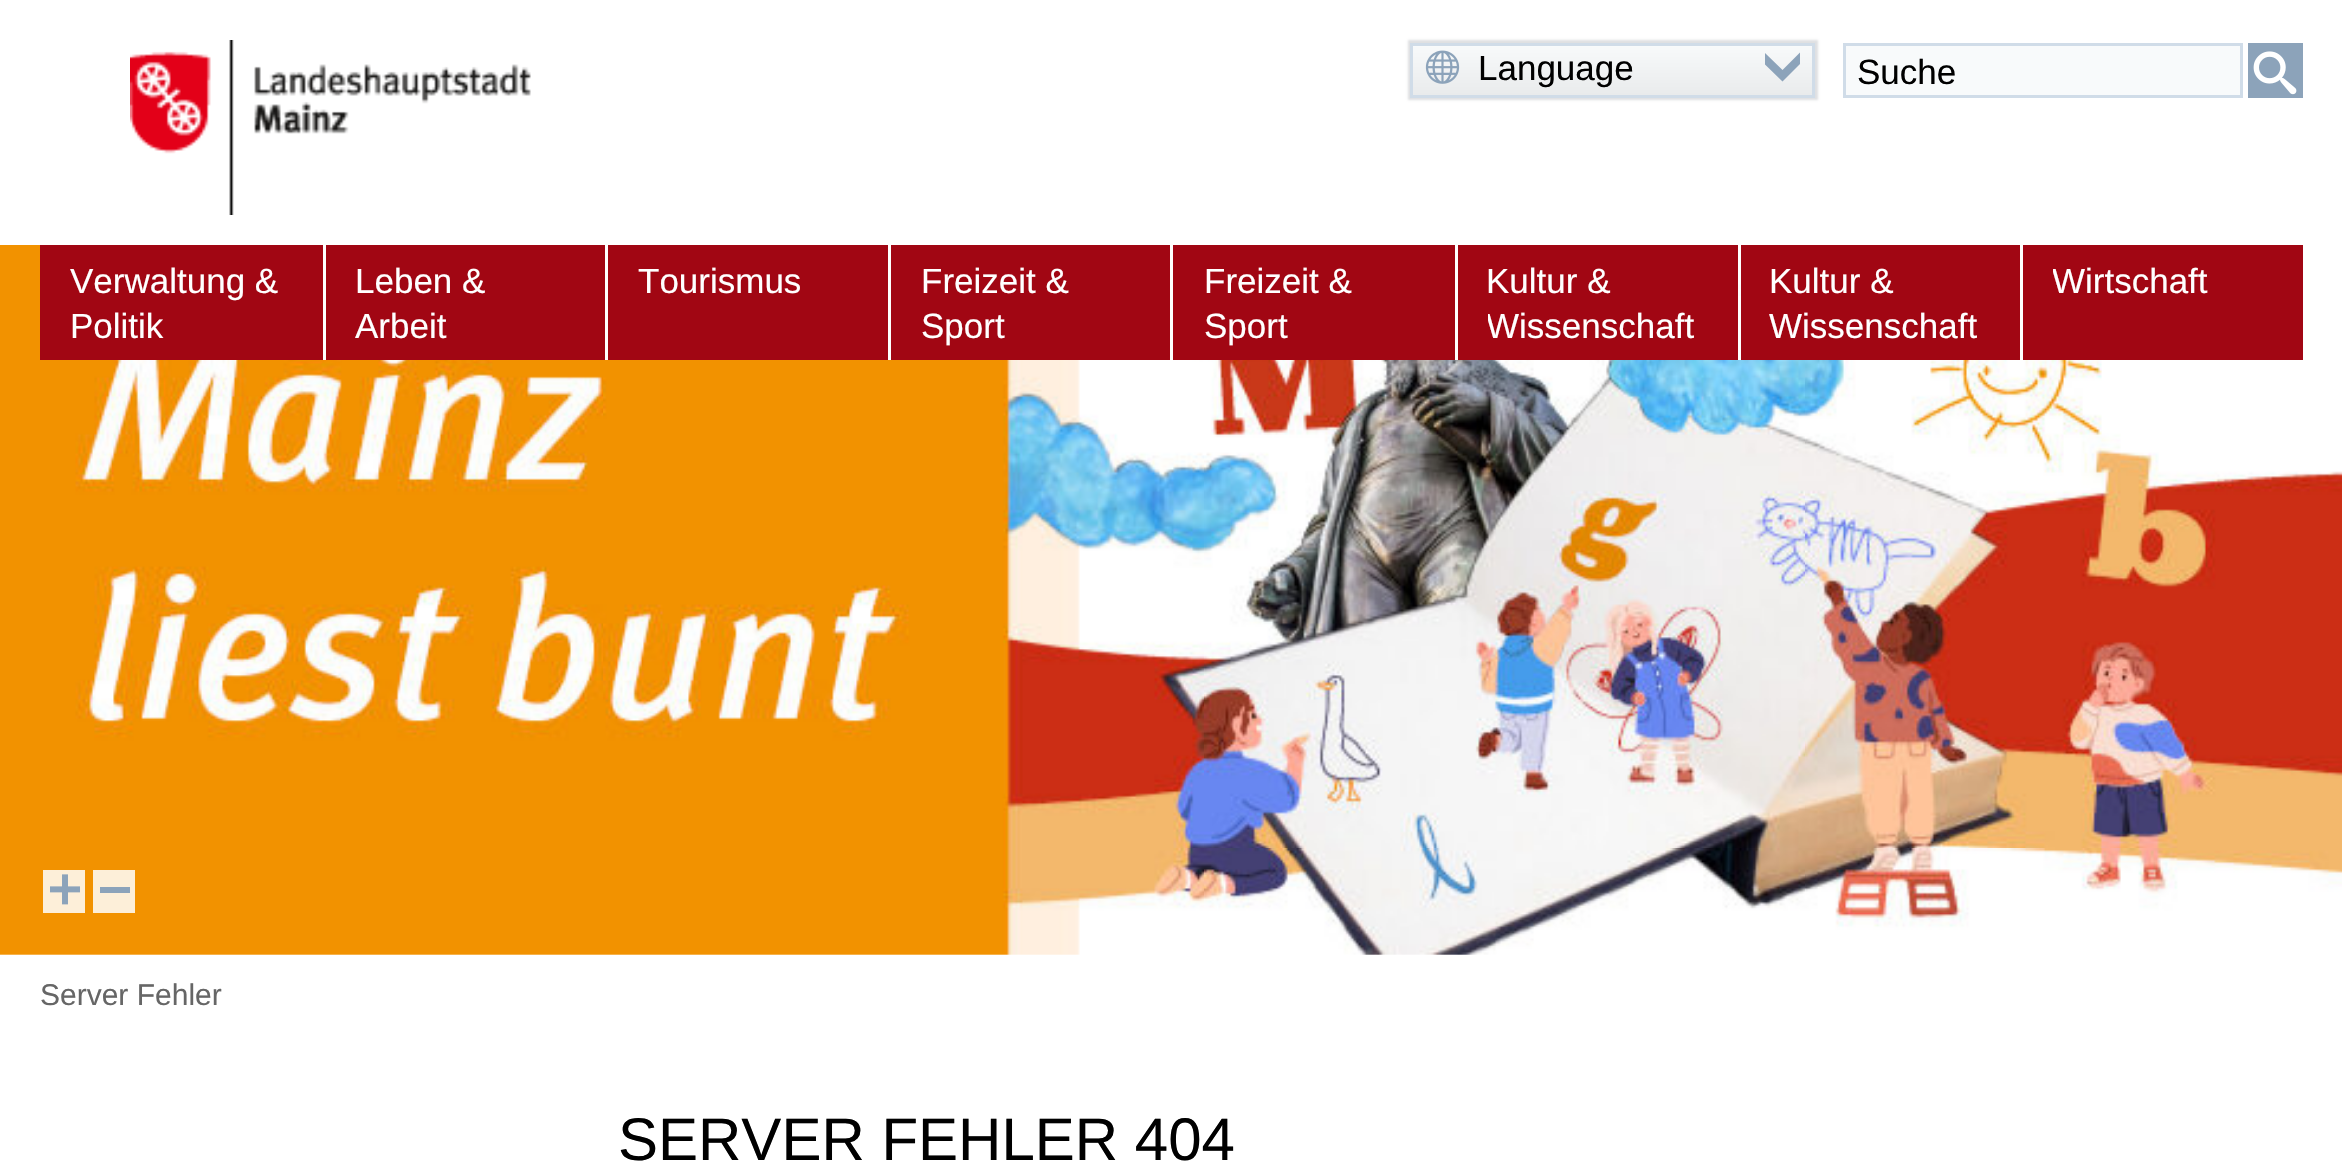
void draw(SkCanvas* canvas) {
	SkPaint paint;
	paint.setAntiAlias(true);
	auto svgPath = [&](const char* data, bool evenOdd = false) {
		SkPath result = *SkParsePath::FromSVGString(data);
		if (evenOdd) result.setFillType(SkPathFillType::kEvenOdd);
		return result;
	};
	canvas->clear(0xffffffff);
	canvas->drawImageRect(SkImages::DeferredFromEncodedData(SkData::MakeFromFileName("img1.png")), SkRect::MakeXYWH(130, 40, 401, 175), SkSamplingOptions());
	paint.setColor(0xffdfe0e2);
	paint.setMaskFilter(SkMaskFilter::MakeBlur(kNormal_SkBlurStyle, 1));
	canvas->drawRect(SkRect::MakeXYWH(1408, 40, 410, 60), paint);
	paint.setMaskFilter(nullptr);
	{
		const SkColor colors[] = {0xfff8fafb, 0xffe9ebec};
		const float stops[] = {0, 1};
		const SkPoint ends[] = {{1613, 45}, {1613, 95}};
		paint.setShader(SkGradientShader::MakeLinear(ends, colors, stops, 2, SkTileMode::kClamp));
		paint.setAlpha(255);
	}
	canvas->drawRect(SkRect::MakeXYWH(1413, 46, 399, 49), paint);
	paint.setStroke(true);
	paint.setStrokeWidth(3);
	paint.setShader(nullptr);
	paint.setColor(0xffd0dce8);
	canvas->drawRect(SkRect::MakeXYWH(1411.5, 44.5, 402, 52), paint);
	canvas->drawImageRect(SkImages::DeferredFromEncodedData(SkData::MakeFromFileName("img2.png")), SkRect::MakeXYWH(1425, 50, 35, 34), SkSamplingOptions());
	SkFont f1(fontMgr->matchFamilyStyle("Liberation Sans", SkFontStyle::Normal()), 35);
	f1.setSubpixel(true);
	paint.setStroke(false);
	paint.setColor(0xff000000);
	canvas->drawString("Language", 1478, 80, f1, paint);
	paint.setColor(0xff8ca3ba);
	canvas->drawPath(svgPath("M1800 64V52.5L1782.5 70L1765 53V64.5L1782.5 81.5Z"), paint);
	paint.setColor(0xfff8fafb);
	canvas->drawRect(SkRect::MakeXYWH(1844.5, 44.5, 397, 52), paint);
	paint.setStroke(true);
	paint.setColor(0xffd0dce8);
	canvas->drawRect(SkRect::MakeXYWH(1844.5, 44.5, 397, 52), paint);
	paint.setStroke(false);
	paint.setColor(0xff000000);
	canvas->drawString("Suche", 1857, 84, f1, paint);
	paint.setColor(0xff8ca3ba);
	canvas->drawRect(SkRect::MakeXYWH(2248, 43, 55, 55), paint);
	canvas->drawImageRect(SkImages::DeferredFromEncodedData(SkData::MakeFromFileName("img3.png")), SkRect::MakeXYWH(2253, 51, 44, 44), SkSamplingOptions());
	canvas->drawImageRect(SkImages::DeferredFromEncodedData(SkData::MakeFromFileName("img4.png")), SkRect::MakeXYWH(0, 245, 2342, 710), SkSamplingOptions());
	paint.setColor(0xffa10613);
	canvas->drawRect(SkRect::MakeXYWH(40, 245, 283, 115), paint);
	paint.setColor(0xffffffff);
	canvas->drawString("Verwaltung &", 70, 293, f1, paint);
	canvas->drawString("Politik", 70, 338, f1, paint);
	paint.setColor(0xffa10613);
	canvas->drawRect(SkRect::MakeXYWH(326, 245, 279, 115), paint);
	paint.setColor(0xffffffff);
	canvas->drawRect(SkRect::MakeXYWH(323, 245, 3, 115), paint);
	canvas->drawString("Leben &", 355, 293, f1, paint);
	canvas->drawString("Arbeit", 355, 338, f1, paint);
	paint.setColor(0xffa10613);
	canvas->drawRect(SkRect::MakeXYWH(608, 245, 280, 115), paint);
	paint.setColor(0xffffffff);
	canvas->drawRect(SkRect::MakeXYWH(605, 245, 3, 115), paint);
	canvas->drawString("Tourismus", 638, 293, f1, paint);
	paint.setColor(0xffa10613);
	canvas->drawRect(SkRect::MakeXYWH(891, 245, 279, 115), paint);
	paint.setColor(0xffffffff);
	canvas->drawRect(SkRect::MakeXYWH(888, 245, 3, 115), paint);
	canvas->drawString("Freizeit &", 921, 293, f1, paint);
	canvas->drawString("Sport", 921, 338, f1, paint);
	paint.setColor(0xffa10613);
	canvas->drawRect(SkRect::MakeXYWH(1173, 245, 282, 115), paint);
	paint.setColor(0xffffffff);
	canvas->drawString("Freizeit &", 1204, 293, f1, paint);
	canvas->drawString("Sport", 1204, 338, f1, paint);
	paint.setColor(0xffa10613);
	canvas->drawRect(SkRect::MakeXYWH(1458, 245, 280, 115), paint);
	paint.setColor(0xffffffff);
	canvas->drawRect(SkRect::MakeXYWH(1455, 266, 3, 94), paint);
	canvas->drawString("Kultur &", 1486, 293, f1, paint);
	canvas->save();
	canvas->clipRect(SkRect::MakeXYWH(1488, 258, 220, 90));
	canvas->drawString("Wissenschaft", 1486, 338, f1, paint);
	canvas->restore();
	paint.setColor(0xffa10613);
	canvas->drawRect(SkRect::MakeXYWH(1741, 245, 279, 115), paint);
	paint.setColor(0xffffffff);
	canvas->drawRect(SkRect::MakeXYWH(1738, 296, 3, 64), paint);
	canvas->drawString("Kultur &", 1769, 293, f1, paint);
	canvas->drawString("Wissenschaft", 1769, 338, f1, paint);
	paint.setColor(0xffa10613);
	canvas->drawRect(SkRect::MakeXYWH(2023, 245, 280, 115), paint);
	paint.setColor(0xffffffff);
	canvas->drawRect(SkRect::MakeXYWH(2020, 282, 3, 59), paint);
	canvas->save();
	canvas->clipRect(SkRect::MakeXYWH(2053, 258, 155, 45));
	canvas->drawString("Wirtschaft", 2052, 293, f1, paint);
	canvas->restore();
	paint.setColor(0xfffdefd9);
	canvas->drawRect(SkRect::MakeXYWH(43, 870, 42, 43), paint);
	canvas->drawImageRect(SkImages::DeferredFromEncodedData(SkData::MakeFromFileName("img5.png")), SkRect::MakeXYWH(50, 874, 30, 31), SkSamplingOptions());
	canvas->drawRect(SkRect::MakeXYWH(93, 870, 42, 43), paint);
	paint.setColor(0xff8ca3ba);
	canvas->drawRect(SkRect::MakeXYWH(100, 887, 30, 6), paint);
	SkFont f2(fontMgr->matchFamilyStyle("Liberation Sans", SkFontStyle::Normal()), 30);
	f2.setSubpixel(true);
	paint.setColor(0xff666666);
	canvas->drawString("Server Fehler", 40, 1005, f2, paint);
	SkFont f3(fontMgr->matchFamilyStyle("Liberation Sans", SkFontStyle::Normal()), 60);
	f3.setSubpixel(true);
	paint.setColor(0xff000000);
	canvas->drawString("SERVER FEHLER 404", 618, 1160, f3, paint);
}
